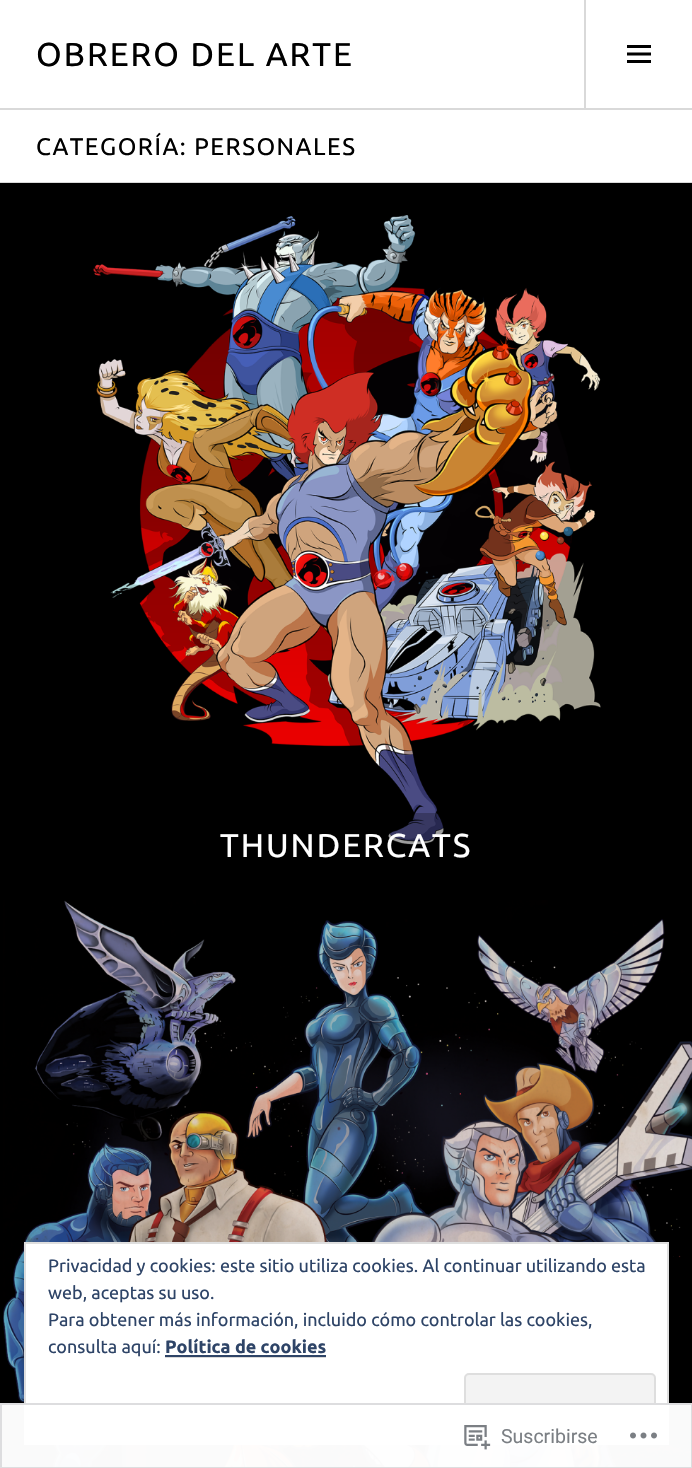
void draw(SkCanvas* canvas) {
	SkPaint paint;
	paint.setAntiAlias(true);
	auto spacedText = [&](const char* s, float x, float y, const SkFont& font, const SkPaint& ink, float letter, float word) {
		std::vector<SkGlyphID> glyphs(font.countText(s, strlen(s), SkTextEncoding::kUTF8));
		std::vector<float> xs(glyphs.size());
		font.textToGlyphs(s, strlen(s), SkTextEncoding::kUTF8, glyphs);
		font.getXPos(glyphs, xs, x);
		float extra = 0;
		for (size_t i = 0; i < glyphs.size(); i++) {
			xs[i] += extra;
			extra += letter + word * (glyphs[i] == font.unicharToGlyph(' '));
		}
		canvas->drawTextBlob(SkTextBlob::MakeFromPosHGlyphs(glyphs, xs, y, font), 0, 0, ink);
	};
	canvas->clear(0xffffffff);
	paint.setColor(0xffd9d9d9);
	canvas->drawRect(SkRect::MakeXYWH(0, 108, 692, 2), paint);
	SkFont f1(fontMgr->matchFamilyStyle("Ubuntu", SkFontStyle::Normal()), 33);
	f1.setSubpixel(true);
	paint.setColor(0xff000000);
	spacedText("OBRERO DEL ARTE", 36, 66, f1, paint, 2, 0);
	paint.setColor(0xffd9d9d9);
	canvas->drawRect(SkRect::MakeXYWH(584, 0, 2, 108), paint);
	canvas->drawImageRect(SkImages::DeferredFromEncodedData(SkData::MakeFromFileName("img1.png")), SkRect::MakeXYWH(627, 45, 24, 18), SkSamplingOptions());
	canvas->drawRect(SkRect::MakeXYWH(0, 182, 692, 1), paint);
	SkFont f2(fontMgr->matchFamilyStyle("Ubuntu", SkFontStyle::Normal()), 24);
	f2.setSubpixel(true);
	paint.setColor(0xff000000);
	spacedText("CATEGORÍA: PERSONALES", 36, 155, f2, paint, 1.5, 0);
	canvas->drawRect(SkRect::MakeXYWH(0, 183, 692, 1285), paint);
	canvas->drawImageRect(SkImages::DeferredFromEncodedData(SkData::MakeFromFileName("img2.png")), SkRect::MakeXYWH(93, 215, 508, 630), SkSamplingOptions());
	paint.setColor(0x40000000);
	canvas->drawRect(SkRect::MakeXYWH(388, 813, 56, 32), paint);
	paint.setColor(0xffffffff);
	spacedText("THUNDERCATS", 220, 857, f1, paint, 2, 0);
	canvas->drawImageRect(SkImages::DeferredFromEncodedData(SkData::MakeFromFileName("img3.png")), SkRect::MakeXYWH(3, 900, 689, 568), SkSamplingOptions());
	canvas->drawRect(SkRect::MakeXYWH(25, 1243, 643, 201), paint);
	paint.setStroke(true);
	paint.setStrokeWidth(2);
	paint.setColor(0xffdedede);
	canvas->drawRect(SkRect::MakeXYWH(25, 1243, 643, 201), paint);
	SkFont f3(fontMgr->matchFamilyStyle("Ubuntu", SkFontStyle::Normal()), 18);
	f3.setSubpixel(true);
	paint.setStroke(false);
	paint.setColor(0xff2e4467);
	canvas->drawString("Privacidad y cookies: este sitio utiliza cookies. Al continuar utilizando esta", 48, 1272, f3, paint);
	canvas->drawString("web, aceptas su uso.", 48, 1299, f3, paint);
	canvas->drawString("Para obtener más información, incluido cómo controlar las cookies,", 48, 1326, f3, paint);
	canvas->drawString("consulta aquí:", 48, 1353, f3, paint);
	SkFont f4(fontMgr->matchFamilyStyle("Ubuntu", SkFontStyle::Bold()), 18);
	f4.setSubpixel(true);
	canvas->drawString("Política de cookies", 165, 1353, f4, paint);
	paint.setColor(0xffd9d9d9);
	canvas->drawRect(SkRect::MakeXYWH(165, 1357, 161, 1), paint);
	paint.setColor(0xff2e4467);
	canvas->drawRect(SkRect::MakeXYWH(165, 1355, 161, 2), paint);
	paint.setColor(0xfff3f3f3);
	canvas->drawRoundRect(SkRect::MakeXYWH(465, 1374, 190, 56), 4, 4, paint);
	paint.setStroke(true);
	paint.setColor(0xffdedede);
	canvas->drawRoundRect(SkRect::MakeXYWH(465, 1374, 190, 56), 4, 4, paint);
	paint.setStroke(false);
	paint.setColor(0xfaffffff);
	canvas->drawRect(SkRect::MakeXYWH(0, 1403, 692, 65), paint);
	paint.setStroke(true);
	paint.setColor(0xfadcdcde);
	canvas->drawRect(SkRect::MakeXYWH(1, 1404, 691, 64), paint);
	canvas->drawImageRect(SkImages::DeferredFromEncodedData(SkData::MakeFromFileName("img4.png")), SkRect::MakeXYWH(464, 1425, 27, 25), SkSamplingOptions());
	SkFont f5(fontMgr->matchFamilyStyle("Roboto", SkFontStyle::Normal()), 19.5);
	f5.setSubpixel(true);
	paint.setStroke(false);
	paint.setColor(0xff7b7f84);
	canvas->drawString("Suscribirse", 501, 1443, f5, paint);
	canvas->drawImageRect(SkImages::DeferredFromEncodedData(SkData::MakeFromFileName("img5.png")), SkRect::MakeXYWH(630, 1432, 27, 7), SkSamplingOptions());
}
